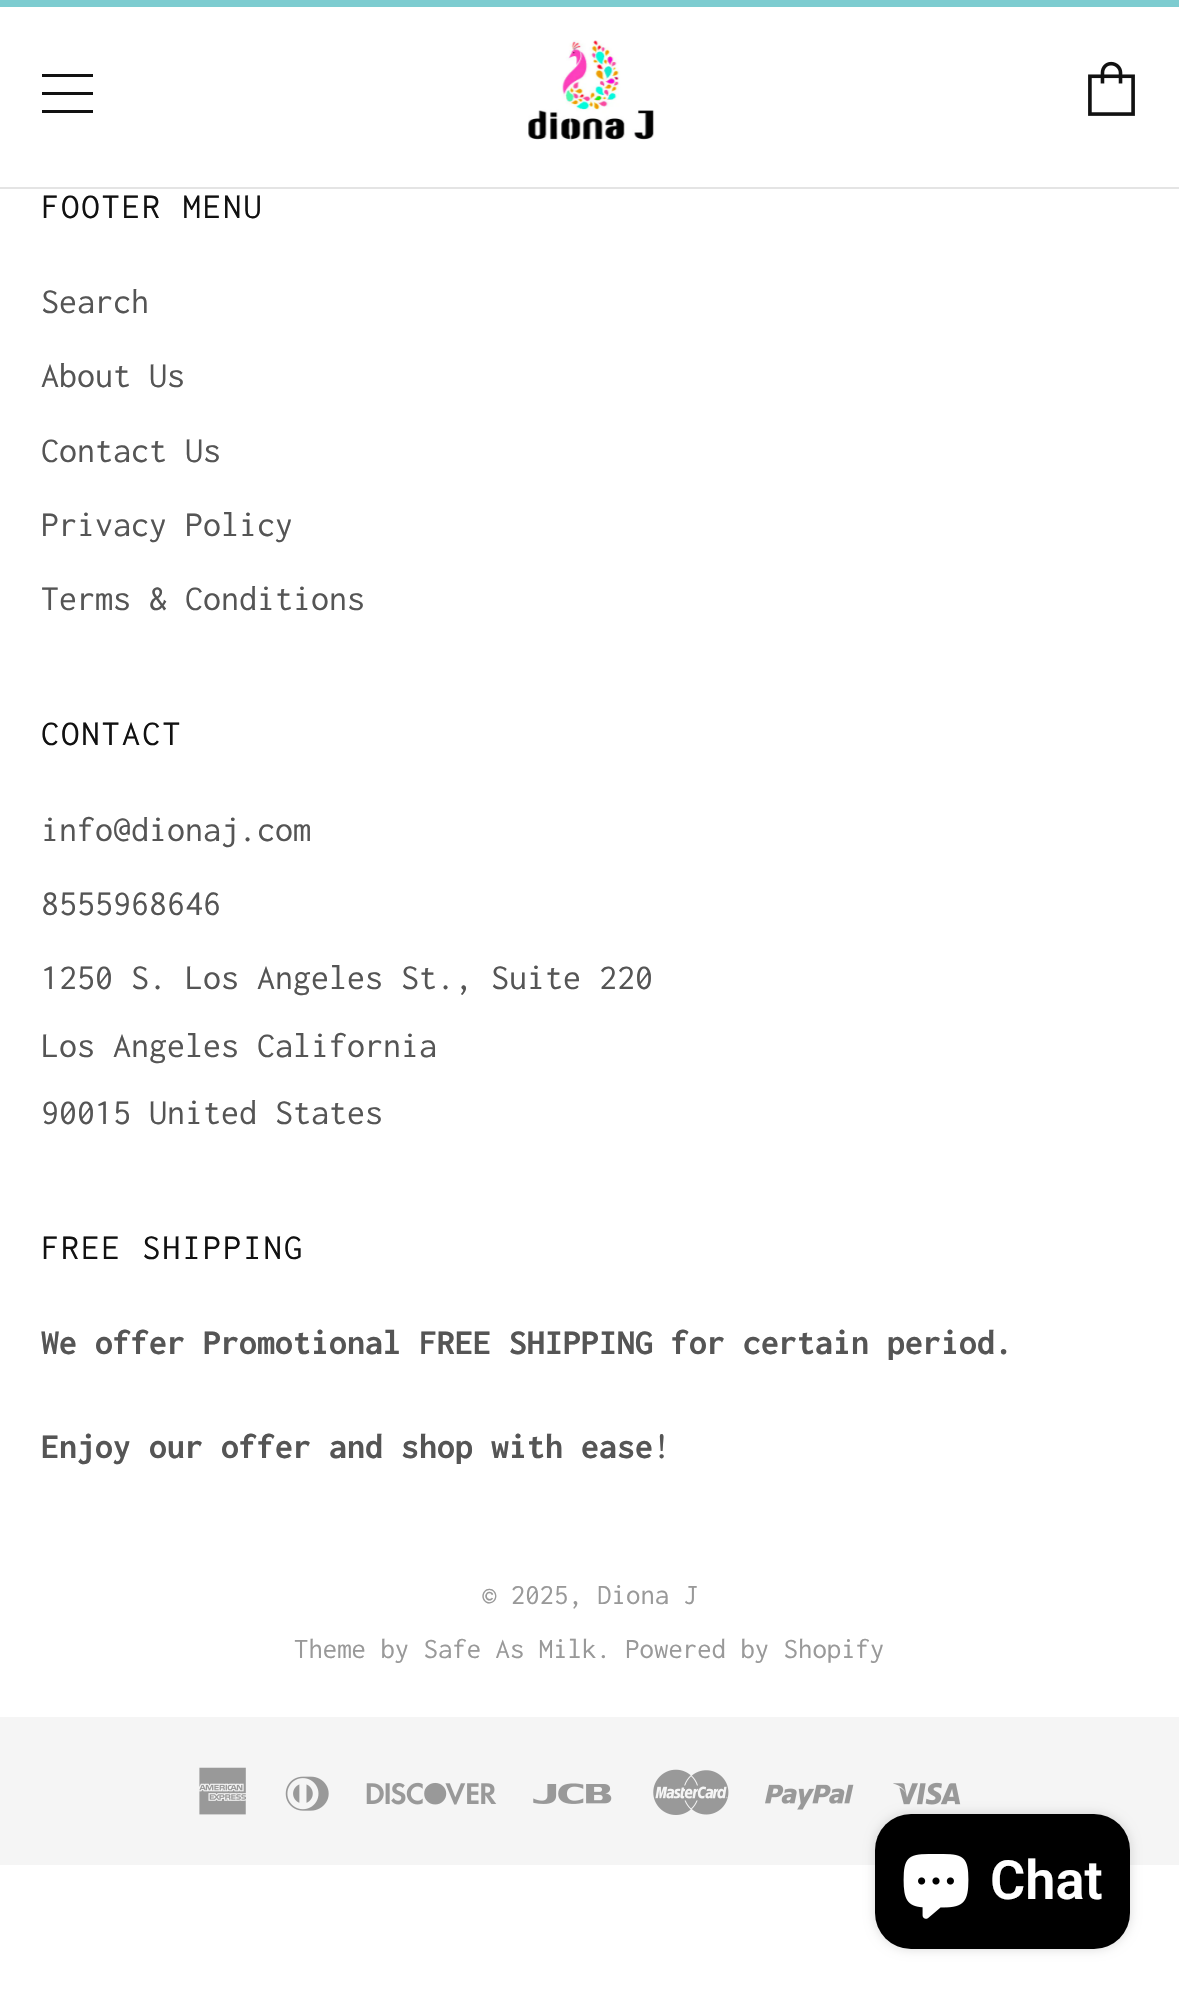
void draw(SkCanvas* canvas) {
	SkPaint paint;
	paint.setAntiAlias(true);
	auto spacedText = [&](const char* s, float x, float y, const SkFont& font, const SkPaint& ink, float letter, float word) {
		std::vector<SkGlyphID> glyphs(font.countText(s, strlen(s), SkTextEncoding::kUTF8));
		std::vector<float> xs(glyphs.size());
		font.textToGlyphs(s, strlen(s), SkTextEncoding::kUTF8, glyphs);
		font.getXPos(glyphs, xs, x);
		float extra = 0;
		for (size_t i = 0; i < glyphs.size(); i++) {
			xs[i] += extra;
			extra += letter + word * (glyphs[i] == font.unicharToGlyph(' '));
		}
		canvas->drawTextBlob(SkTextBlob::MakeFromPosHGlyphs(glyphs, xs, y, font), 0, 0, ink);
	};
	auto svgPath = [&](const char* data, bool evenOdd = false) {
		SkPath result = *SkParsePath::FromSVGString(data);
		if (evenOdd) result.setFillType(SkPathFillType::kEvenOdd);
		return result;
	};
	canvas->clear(0xffffffff);
	paint.setColor(0xffe4e4e4);
	canvas->drawRect(SkRect::MakeXYWH(0, 187, 1179, 2), paint);
	paint.setColor(0xff7dccd0);
	canvas->drawRect(SkRect::MakeXYWH(0, 0, 1179, 7), paint);
	paint.setColor(0xff111111);
	canvas->drawPath(svgPath("M42 77H93V74H42ZM42 113H93V110H42ZM42 95H93V92H42Z"), paint);
	canvas->drawImageRect(SkImages::DeferredFromEncodedData(SkData::MakeFromFileName("img1.png")), SkRect::MakeXYWH(528, 40, 127, 100), SkSamplingOptions());
	canvas->drawImageRect(SkImages::DeferredFromEncodedData(SkData::MakeFromFileName("img2.png")), SkRect::MakeXYWH(1088, 61, 47, 55), SkSamplingOptions());
	SkFont f1(fontMgr->matchFamilyStyle("Inconsolata", SkFontStyle::Normal()), 36);
	f1.setSubpixel(true);
	spacedText("FOOTER MENU", 41, 218, f1, paint, 2.25, 0);
	paint.setColor(0xff555555);
	canvas->drawString("Search", 41, 313, f1, paint);
	canvas->drawString("About Us", 41, 387, f1, paint);
	canvas->drawString("Contact Us", 41, 462, f1, paint);
	canvas->drawString("Privacy Policy", 41, 536, f1, paint);
	canvas->drawString("Terms & Conditions", 41, 610, f1, paint);
	paint.setColor(0xff111111);
	spacedText("CONTACT", 41, 745, f1, paint, 2.25, 0);
	paint.setColor(0xff555555);
	canvas->drawString("info@dionaj.com", 41, 841, f1, paint);
	canvas->drawString("8555968646", 41, 915, f1, paint);
	canvas->drawString("1250 S. Los Angeles St., Suite 220", 41, 989, f1, paint);
	canvas->drawString("Los Angeles California", 41, 1057, f1, paint);
	canvas->drawString("90015 United States", 41, 1124, f1, paint);
	paint.setColor(0xff111111);
	spacedText("FREE SHIPPING", 41, 1259, f1, paint, 2.25, 0);
	SkFont f2(fontMgr->matchFamilyStyle("Inconsolata", SkFontStyle::Bold()), 36);
	f2.setSubpixel(true);
	paint.setColor(0xff555555);
	canvas->drawString("We offer Promotional FREE SHIPPING for certain period.", 41, 1354, f2, paint);
	canvas->drawString("Enjoy our offer and shop with ease", 41, 1458, f2, paint);
	canvas->drawString("!", 653, 1458, f1, paint);
	SkFont f3(fontMgr->matchFamilyStyle("Inconsolata", SkFontStyle::Normal()), 28.8);
	f3.setSubpixel(true);
	paint.setColor(0xff999999);
	canvas->drawString("© 2025, Diona J", 482, 1604, f3, paint);
	canvas->drawString("Theme by Safe As Milk. Powered by Shopify", 294, 1658, f3, paint);
	paint.setColor(0xfff5f5f5);
	canvas->drawRect(SkRect::MakeXYWH(0, 1717, 1179, 148), paint);
	canvas->drawImageRect(SkImages::DeferredFromEncodedData(SkData::MakeFromFileName("img3.png")), SkRect::MakeXYWH(199, 1767, 47, 48), SkSamplingOptions());
	canvas->drawImageRect(SkImages::DeferredFromEncodedData(SkData::MakeFromFileName("img4.png")), SkRect::MakeXYWH(285, 1776, 44, 35), SkSamplingOptions());
	canvas->drawImageRect(SkImages::DeferredFromEncodedData(SkData::MakeFromFileName("img5.png")), SkRect::MakeXYWH(366, 1782, 131, 23), SkSamplingOptions());
	canvas->drawImageRect(SkImages::DeferredFromEncodedData(SkData::MakeFromFileName("img6.png")), SkRect::MakeXYWH(533, 1783, 79, 21), SkSamplingOptions());
	canvas->drawImageRect(SkImages::DeferredFromEncodedData(SkData::MakeFromFileName("img7.png")), SkRect::MakeXYWH(653, 1769, 76, 46), SkSamplingOptions());
	canvas->drawImageRect(SkImages::DeferredFromEncodedData(SkData::MakeFromFileName("img8.png")), SkRect::MakeXYWH(765, 1784, 89, 26), SkSamplingOptions());
	canvas->drawImageRect(SkImages::DeferredFromEncodedData(SkData::MakeFromFileName("img9.png")), SkRect::MakeXYWH(893, 1782, 68, 23), SkSamplingOptions());
	paint.setColor(0x26000000);
	paint.setMaskFilter(SkMaskFilter::MakeBlur(kNormal_SkBlurStyle, 5.5));
	canvas->drawRoundRect(SkRect::MakeXYWH(875, 1814, 255, 135), 36, 36, paint);
	paint.setMaskFilter(nullptr);
	paint.setColor(0xff000000);
	canvas->drawRoundRect(SkRect::MakeXYWH(875, 1814, 255, 135), 36, 36, paint);
	canvas->drawImageRect(SkImages::DeferredFromEncodedData(SkData::MakeFromFileName("img10.png")), SkRect::MakeXYWH(903, 1854, 66, 65), SkSamplingOptions());
	SkFont f4(fontMgr->matchFamilyStyle("Roboto", SkFontStyle(600, SkFontStyle::kNormal_Width, SkFontStyle::kUpright_Slant)), 54);
	f4.setSubpixel(true);
	paint.setColor(0xffffffff);
	canvas->drawString("Chat", 990, 1899, f4, paint);
}
